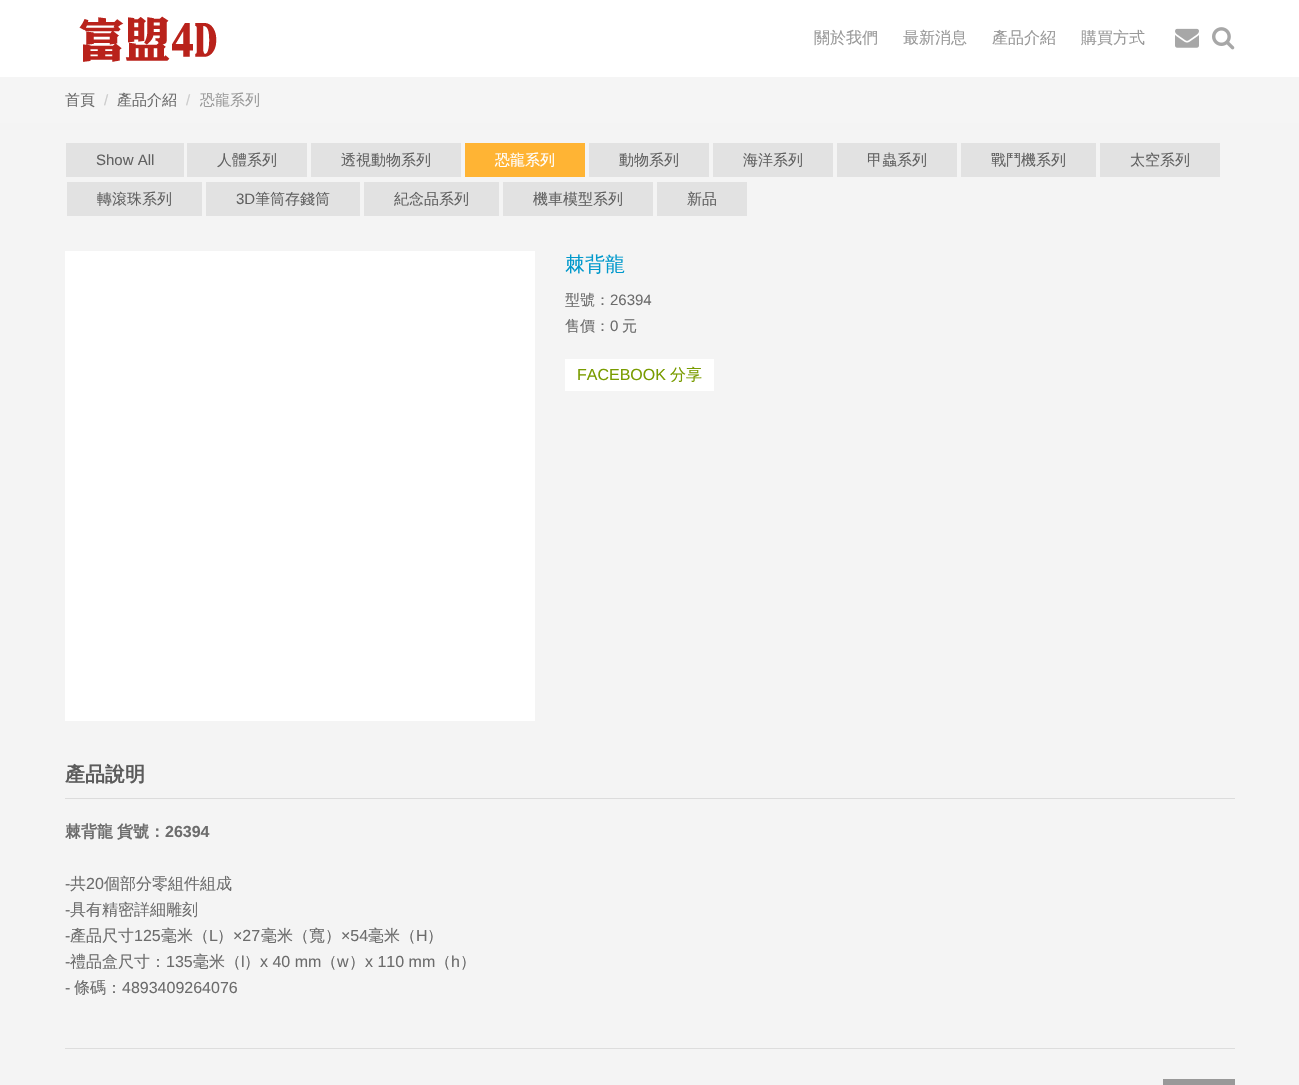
void draw(SkCanvas* canvas) {
	SkPaint paint;
	paint.setAntiAlias(true);
	canvas->clear(0xffffffff);
	canvas->drawImageRect(SkImages::DeferredFromEncodedData(SkData::MakeFromFileName("img1.png")), SkRect::MakeXYWH(79, 16, 138, 46), SkSamplingOptions());
	SkFont f1(fontMgr->matchFamilyStyle("WenQuanYi Zen Hei", SkFontStyle(500, SkFontStyle::kNormal_Width, SkFontStyle::kUpright_Slant)), 16);
	f1.setSubpixel(true);
	paint.setColor(0xff999999);
	canvas->drawString("關於我們", 814, 43, f1, paint);
	canvas->drawString("最新消息", 903, 43, f1, paint);
	canvas->drawString("產品介紹", 992, 43, f1, paint);
	canvas->drawString("購買方式", 1081, 43, f1, paint);
	canvas->drawImageRect(SkImages::DeferredFromEncodedData(SkData::MakeFromFileName("img2.png")), SkRect::MakeXYWH(1175, 28, 24, 20), SkSamplingOptions());
	canvas->drawImageRect(SkImages::DeferredFromEncodedData(SkData::MakeFromFileName("img3.png")), SkRect::MakeXYWH(1212, 27, 23, 23), SkSamplingOptions());
	paint.setColor(0xfff5f5f5);
	canvas->drawRect(SkRect::MakeXYWH(0, 77, 1299, 46), paint);
	SkFont f2(fontMgr->matchFamilyStyle("WenQuanYi Zen Hei", SkFontStyle(500, SkFontStyle::kNormal_Width, SkFontStyle::kUpright_Slant)), 15);
	f2.setSubpixel(true);
	paint.setColor(0xff6c6c6c);
	canvas->drawString("首頁", 65, 105, f2, paint);
	SkFont f3(fontMgr->matchFamilyStyle("Liberation Sans", SkFontStyle::Normal()), 15);
	f3.setSubpixel(true);
	paint.setColor(0xffcccccc);
	canvas->drawString("/", 104, 105, f3, paint);
	paint.setColor(0xff6c6c6c);
	canvas->drawString("產品介紹", 117, 105, f2, paint);
	paint.setColor(0xffcccccc);
	canvas->drawString("/", 186, 105, f3, paint);
	paint.setColor(0xff999999);
	canvas->drawString("恐龍系列", 200, 105, f2, paint);
	paint.setColor(0xfff4f4f4);
	canvas->drawRect(SkRect::MakeXYWH(0, 123, 1299, 962), paint);
	paint.setColor(0xffe2e2e2);
	canvas->drawRect(SkRect::MakeXYWH(66, 143, 118, 34), paint);
	paint.setColor(0xff616161);
	canvas->drawString("Show All", 96, 165, f3, paint);
	paint.setColor(0xffe2e2e2);
	canvas->drawRect(SkRect::MakeXYWH(187, 143, 120, 34), paint);
	paint.setColor(0xff616161);
	canvas->drawString("人體系列", 217, 165, f2, paint);
	paint.setColor(0xffe2e2e2);
	canvas->drawRect(SkRect::MakeXYWH(311, 143, 150, 34), paint);
	paint.setColor(0xff616161);
	canvas->drawString("透視動物系列", 341, 165, f2, paint);
	paint.setColor(0xffffb434);
	canvas->drawRect(SkRect::MakeXYWH(465, 143, 120, 34), paint);
	paint.setColor(0xffffffff);
	canvas->drawString("恐龍系列", 495, 165, f2, paint);
	paint.setColor(0xffe2e2e2);
	canvas->drawRect(SkRect::MakeXYWH(589, 143, 120, 34), paint);
	paint.setColor(0xff616161);
	canvas->drawString("動物系列", 619, 165, f2, paint);
	paint.setColor(0xffe2e2e2);
	canvas->drawRect(SkRect::MakeXYWH(713, 143, 120, 34), paint);
	paint.setColor(0xff616161);
	canvas->drawString("海洋系列", 743, 165, f2, paint);
	paint.setColor(0xffe2e2e2);
	canvas->drawRect(SkRect::MakeXYWH(837, 143, 120, 34), paint);
	paint.setColor(0xff616161);
	canvas->drawString("甲蟲系列", 867, 165, f2, paint);
	paint.setColor(0xffe2e2e2);
	canvas->drawRect(SkRect::MakeXYWH(961, 143, 135, 34), paint);
	paint.setColor(0xff616161);
	canvas->drawString("戰鬥機系列", 991, 165, f2, paint);
	paint.setColor(0xffe2e2e2);
	canvas->drawRect(SkRect::MakeXYWH(1100, 143, 120, 34), paint);
	paint.setColor(0xff616161);
	canvas->drawString("太空系列", 1130, 165, f2, paint);
	paint.setColor(0xffe2e2e2);
	canvas->drawRect(SkRect::MakeXYWH(67, 182, 135, 34), paint);
	paint.setColor(0xff616161);
	canvas->drawString("轉滾珠系列", 97, 204, f2, paint);
	paint.setColor(0xffe2e2e2);
	canvas->drawRect(SkRect::MakeXYWH(206, 182, 154, 34), paint);
	paint.setColor(0xff616161);
	canvas->drawString("3D", 236, 204, f3, paint);
	canvas->drawString("筆筒存錢筒", 255, 204, f2, paint);
	paint.setColor(0xffe2e2e2);
	canvas->drawRect(SkRect::MakeXYWH(364, 182, 135, 34), paint);
	paint.setColor(0xff616161);
	canvas->drawString("紀念品系列", 394, 204, f2, paint);
	paint.setColor(0xffe2e2e2);
	canvas->drawRect(SkRect::MakeXYWH(503, 182, 150, 34), paint);
	paint.setColor(0xff616161);
	canvas->drawString("機車模型系列", 533, 204, f2, paint);
	paint.setColor(0xffe2e2e2);
	canvas->drawRect(SkRect::MakeXYWH(657, 182, 90, 34), paint);
	paint.setColor(0xff616161);
	canvas->drawString("新品", 687, 204, f2, paint);
	paint.setColor(0xffffffff);
	canvas->drawRect(SkRect::MakeXYWH(65, 251, 470, 470), paint);
	SkFont f4(fontMgr->matchFamilyStyle("WenQuanYi Zen Hei", SkFontStyle(500, SkFontStyle::kNormal_Width, SkFontStyle::kUpright_Slant)), 20);
	f4.setSubpixel(true);
	paint.setColor(0xff0099cc);
	canvas->drawString("棘背龍", 565, 271, f4, paint);
	paint.setColor(0xff6c6c6c);
	canvas->drawString("型號：", 565, 305, f2, paint);
	canvas->drawString("26394", 610, 305, f3, paint);
	canvas->drawString("售價：", 565, 331, f2, paint);
	canvas->drawString("0", 610, 331, f3, paint);
	canvas->drawString("元", 622, 331, f2, paint);
	paint.setColor(0xffffffff);
	canvas->drawRect(SkRect::MakeXYWH(565, 359, 149, 32), paint);
	SkFont f5(fontMgr->matchFamilyStyle("Liberation Sans", SkFontStyle::Normal()), 16);
	f5.setSubpixel(true);
	paint.setColor(0xff799c00);
	canvas->drawString("FACEBOOK", 577, 380, f5, paint);
	canvas->drawString("分享", 670, 380, f1, paint);
	paint.setColor(0xffdcdcdc);
	canvas->drawRect(SkRect::MakeXYWH(65, 798, 1170, 1), paint);
	SkFont f6(fontMgr->matchFamilyStyle("WenQuanYi Zen Hei", SkFontStyle::Bold()), 20);
	f6.setSubpixel(true);
	paint.setColor(0xff5b5b5b);
	canvas->drawString("產品說明", 65, 781, f6, paint);
	SkFont f7(fontMgr->matchFamilyStyle("WenQuanYi Zen Hei", SkFontStyle::Bold()), 16);
	f7.setSubpixel(true);
	paint.setColor(0xff6c6c6c);
	canvas->drawString("棘背龍", 65, 837, f7, paint);
	canvas->drawString("貨號：", 117, 837, f7, paint);
	SkFont f8(fontMgr->matchFamilyStyle("Liberation Sans", SkFontStyle::Bold()), 16);
	f8.setSubpixel(true);
	canvas->drawString("26394", 165, 837, f8, paint);
	canvas->drawString("-", 65, 889, f5, paint);
	canvas->drawString("共", 70, 889, f1, paint);
	canvas->drawString("20", 86, 889, f5, paint);
	canvas->drawString("個部分零組件組成", 104, 889, f1, paint);
	canvas->drawString("-", 65, 915, f5, paint);
	canvas->drawString("具有精密詳細雕刻", 70, 915, f1, paint);
	canvas->drawString("-", 65, 941, f5, paint);
	canvas->drawString("產品尺寸", 70, 941, f1, paint);
	canvas->drawString("125", 134, 941, f5, paint);
	canvas->drawString("毫米（", 161, 941, f1, paint);
	canvas->drawString("L", 209, 941, f5, paint);
	canvas->drawString("）", 217, 941, f1, paint);
	canvas->drawString("×27", 233, 941, f5, paint);
	canvas->drawString("毫米（寬）", 261, 941, f1, paint);
	canvas->drawString("×54", 341, 941, f5, paint);
	canvas->drawString("毫米（", 368, 941, f1, paint);
	canvas->drawString("H", 416, 941, f5, paint);
	canvas->drawString("）", 427, 941, f1, paint);
	canvas->drawString("-", 65, 967, f5, paint);
	canvas->drawString("禮品盒尺寸：", 70, 967, f1, paint);
	canvas->drawString("135", 166, 967, f5, paint);
	canvas->drawString("毫米（", 193, 967, f1, paint);
	canvas->drawString("l", 241, 967, f5, paint);
	canvas->drawString("）", 244, 967, f1, paint);
	canvas->drawString("x 40 mm", 260, 967, f5, paint);
	canvas->drawString("（", 321, 967, f1, paint);
	canvas->drawString("w", 337, 967, f5, paint);
	canvas->drawString("）", 349, 967, f1, paint);
	canvas->drawString("x 110 mm", 365, 967, f5, paint);
	canvas->drawString("（", 435, 967, f1, paint);
	canvas->drawString("h", 451, 967, f5, paint);
	canvas->drawString("）", 460, 967, f1, paint);
	canvas->drawString("-", 65, 993, f5, paint);
	canvas->drawString("條碼：", 74, 993, f1, paint);
	canvas->drawString("4893409264076", 122, 993, f5, paint);
	paint.setColor(0xffdddddd);
	canvas->drawRect(SkRect::MakeXYWH(65, 1048, 1170, 1), paint);
	paint.setColor(0xff999999);
	canvas->drawRect(SkRect::MakeXYWH(1163, 1079, 72, 6), paint);
}
